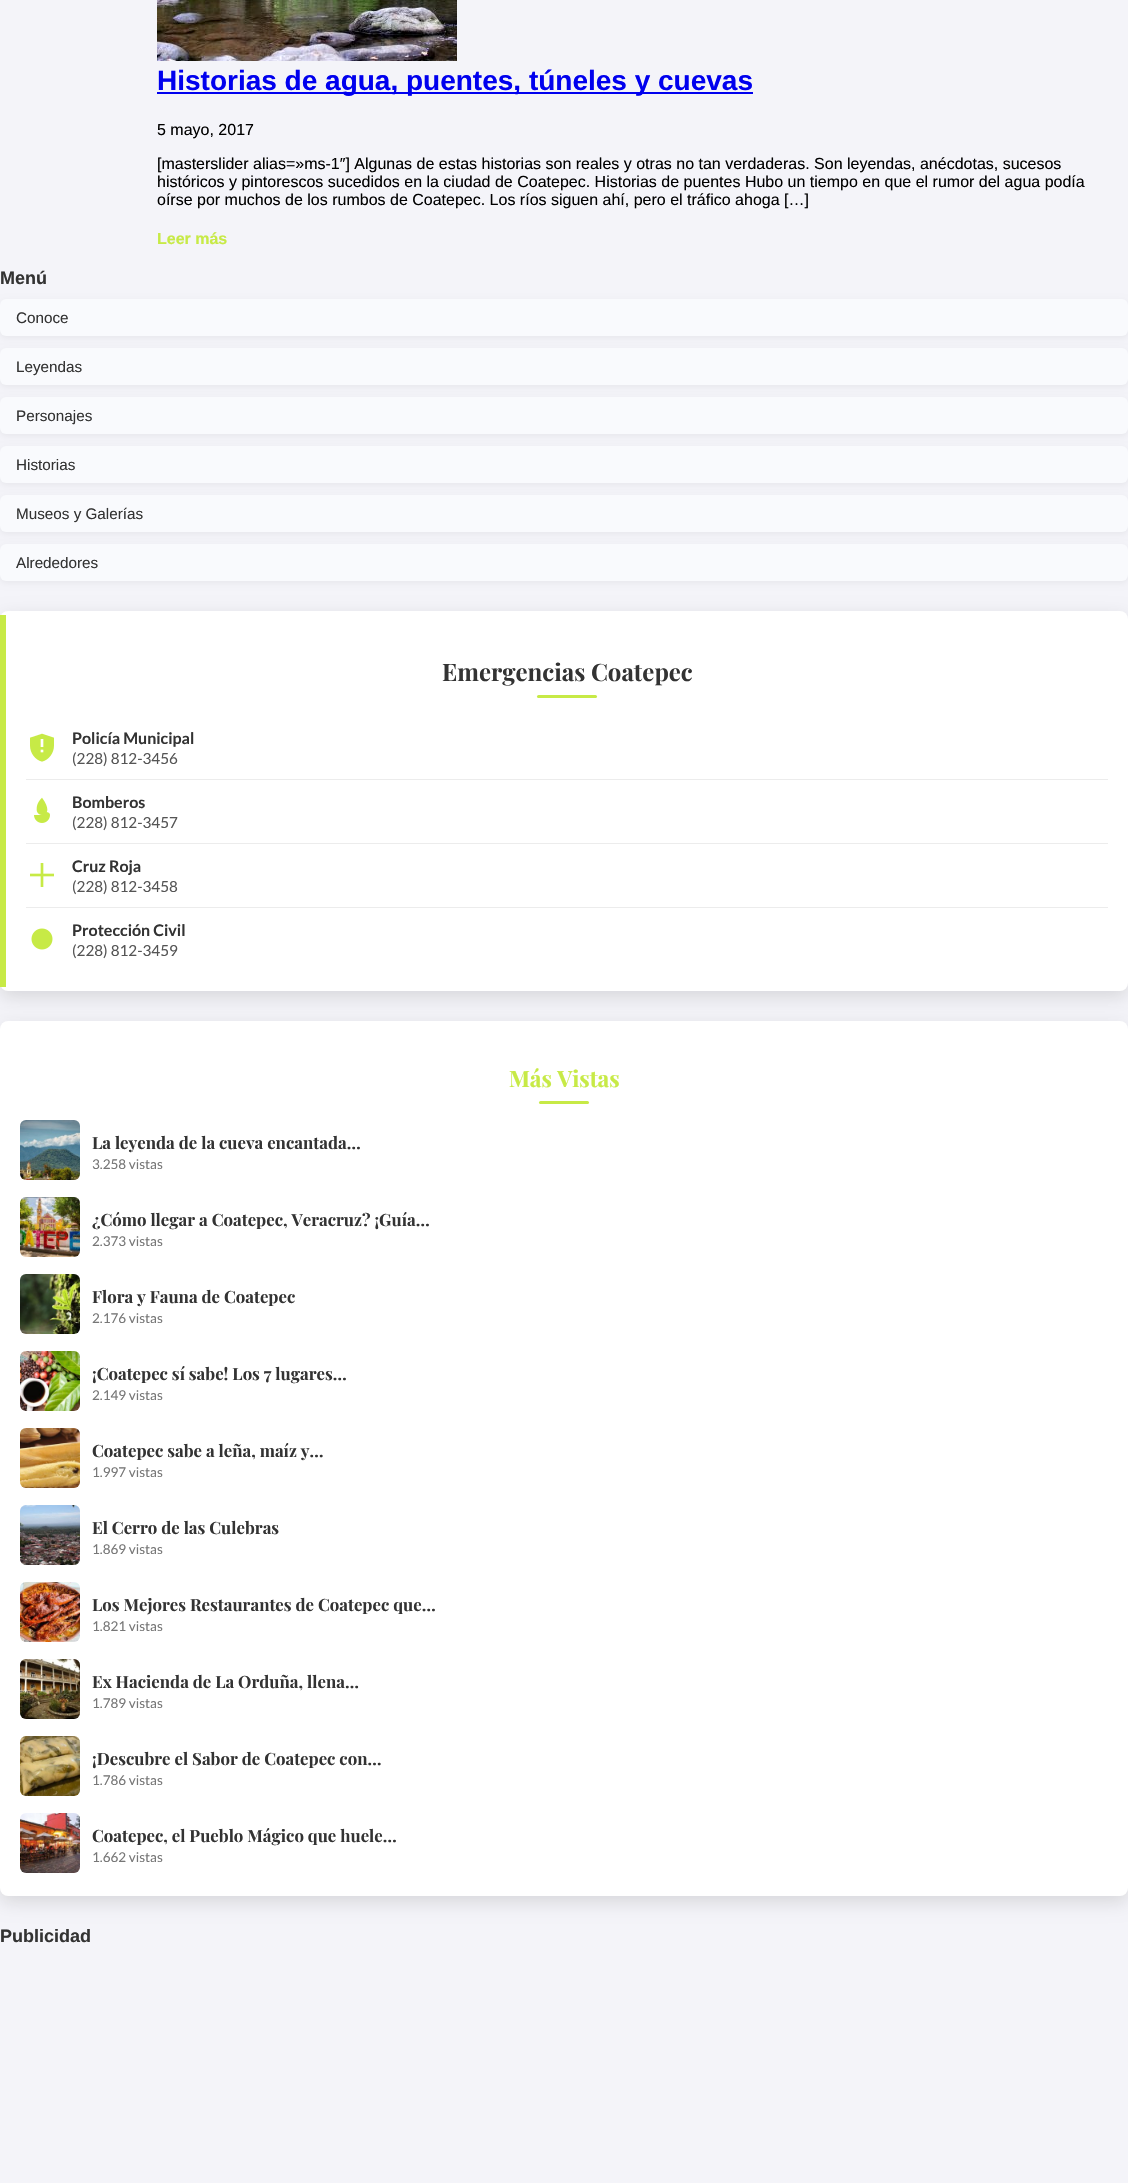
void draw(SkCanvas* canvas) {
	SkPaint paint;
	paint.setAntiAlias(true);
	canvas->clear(0xfff4f4f9);
	canvas->drawImageRect(SkImages::DeferredFromEncodedData(SkData::MakeFromFileName("img1.png")), SkRect::MakeXYWH(157, 0, 300, 61), SkSamplingOptions());
	paint.setColor(0xff0000ee);
	canvas->drawRect(SkRect::MakeXYWH(157, 92, 596, 2), paint);
	SkFont f1(fontMgr->matchFamilyStyle("Liberation Sans", SkFontStyle::Bold()), 28);
	f1.setSubpixel(true);
	canvas->drawString("Historias de agua, puentes, túneles y cuevas", 157, 90, f1, paint);
	SkFont f2(fontMgr->matchFamilyStyle("Liberation Sans", SkFontStyle::Normal()), 16);
	f2.setSubpixel(true);
	paint.setColor(0xff000000);
	canvas->drawString("5 mayo, 2017", 157, 135, f2, paint);
	canvas->drawString("[masterslider alias=»ms-1″] Algunas de estas historias son reales y otras no tan verdaderas. Son leyendas, anécdotas, sucesos", 157, 169, f2, paint);
	canvas->drawString("históricos y pintorescos sucedidos en la ciudad de Coatepec. Historias de puentes Hubo un tiempo en que el rumor del agua podía", 157, 187, f2, paint);
	canvas->drawString("oírse por muchos de los rumbos de Coatepec. Los ríos siguen ahí, pero el tráfico ahoga […]", 157, 205, f2, paint);
	SkFont f3(fontMgr->matchFamilyStyle("Liberation Sans", SkFontStyle::Bold()), 16);
	f3.setSubpixel(true);
	paint.setColor(0xffc7ea46);
	canvas->drawString("Leer más", 157, 244, f3, paint);
	SkFont f4(fontMgr->matchFamilyStyle("Liberation Sans", SkFontStyle::Bold()), 18);
	f4.setSubpixel(true);
	paint.setColor(0xff333333);
	canvas->drawString("Menú", 0, 284, f4, paint);
	paint.setColor(0x0d000000);
	paint.setMaskFilter(SkMaskFilter::MakeBlur(kNormal_SkBlurStyle, 3));
	canvas->drawRoundRect(SkRect::MakeXYWH(0, 301, 1128, 37), 6, 6, paint);
	paint.setMaskFilter(nullptr);
	paint.setColor(0xfff9fafd);
	canvas->drawRoundRect(SkRect::MakeXYWH(0, 299, 1128, 37), 6, 6, paint);
	SkFont f5(fontMgr->matchFamilyStyle("Liberation Sans", SkFontStyle::Normal()), 15.25);
	f5.setSubpixel(true);
	paint.setColor(0xff333333);
	canvas->drawString("Conoce", 16, 323, f5, paint);
	paint.setColor(0x0d000000);
	paint.setMaskFilter(SkMaskFilter::MakeBlur(kNormal_SkBlurStyle, 3));
	canvas->drawRoundRect(SkRect::MakeXYWH(0, 350, 1128, 37), 6, 6, paint);
	paint.setMaskFilter(nullptr);
	paint.setColor(0xfff9fafd);
	canvas->drawRoundRect(SkRect::MakeXYWH(0, 348, 1128, 37), 6, 6, paint);
	paint.setColor(0xff333333);
	canvas->drawString("Leyendas", 16, 372, f5, paint);
	paint.setColor(0x0d000000);
	paint.setMaskFilter(SkMaskFilter::MakeBlur(kNormal_SkBlurStyle, 3));
	canvas->drawRoundRect(SkRect::MakeXYWH(0, 399, 1128, 37), 6, 6, paint);
	paint.setMaskFilter(nullptr);
	paint.setColor(0xfff9fafd);
	canvas->drawRoundRect(SkRect::MakeXYWH(0, 397, 1128, 37), 6, 6, paint);
	paint.setColor(0xff333333);
	canvas->drawString("Personajes", 16, 421, f5, paint);
	paint.setColor(0x0d000000);
	paint.setMaskFilter(SkMaskFilter::MakeBlur(kNormal_SkBlurStyle, 3));
	canvas->drawRoundRect(SkRect::MakeXYWH(0, 448, 1128, 37), 6, 6, paint);
	paint.setMaskFilter(nullptr);
	paint.setColor(0xfff9fafd);
	canvas->drawRoundRect(SkRect::MakeXYWH(0, 446, 1128, 37), 6, 6, paint);
	paint.setColor(0xff333333);
	canvas->drawString("Historias", 16, 470, f5, paint);
	paint.setColor(0x0d000000);
	paint.setMaskFilter(SkMaskFilter::MakeBlur(kNormal_SkBlurStyle, 3));
	canvas->drawRoundRect(SkRect::MakeXYWH(0, 497, 1128, 37), 6, 6, paint);
	paint.setMaskFilter(nullptr);
	paint.setColor(0xfff9fafd);
	canvas->drawRoundRect(SkRect::MakeXYWH(0, 495, 1128, 37), 6, 6, paint);
	paint.setColor(0xff333333);
	canvas->drawString("Museos y Galerías", 16, 519, f5, paint);
	paint.setColor(0x0d000000);
	paint.setMaskFilter(SkMaskFilter::MakeBlur(kNormal_SkBlurStyle, 3));
	canvas->drawRoundRect(SkRect::MakeXYWH(0, 546, 1128, 37), 6, 6, paint);
	paint.setMaskFilter(nullptr);
	paint.setColor(0xfff9fafd);
	canvas->drawRoundRect(SkRect::MakeXYWH(0, 544, 1128, 37), 6, 6, paint);
	paint.setColor(0xff333333);
	canvas->drawString("Alrededores", 16, 568, f5, paint);
	paint.setColor(0x1f000000);
	paint.setMaskFilter(SkMaskFilter::MakeBlur(kNormal_SkBlurStyle, 9));
	canvas->drawRoundRect(SkRect::MakeXYWH(0, 617, 1128, 380), 8, 8, paint);
	paint.setMaskFilter(nullptr);
	paint.setColor(0xffffffff);
	canvas->drawRoundRect(SkRect::MakeXYWH(0, 611, 1128, 380), 8, 8, paint);
	paint.setColor(0xffc7ea46);
	canvas->drawRect(SkRect::MakeXYWH(0, 615, 6, 372), paint);
	SkFont f6(fontMgr->matchFamilyStyle("Playfair Display", SkFontStyle::Bold()), 24);
	f6.setSubpixel(true);
	paint.setColor(0xff333333);
	canvas->drawString("Emergencias Coatepec", 442, 681, f6, paint);
	paint.setColor(0xffc7ea46);
	canvas->drawRoundRect(SkRect::MakeXYWH(537, 695, 60, 3), 1.5, 1.5, paint);
	paint.setColor(0xffececec);
	canvas->drawRect(SkRect::MakeXYWH(26, 779, 1082, 1), paint);
	canvas->drawImageRect(SkImages::DeferredFromEncodedData(SkData::MakeFromFileName("img2.png")), SkRect::MakeXYWH(30, 733, 24, 29), SkSamplingOptions());
	SkFont f7(fontMgr->matchFamilyStyle("Lato", SkFontStyle::Bold()), 16);
	f7.setSubpixel(true);
	paint.setColor(0xff333333);
	canvas->drawString("Policía Municipal", 72, 744, f7, paint);
	SkFont f8(fontMgr->matchFamilyStyle("Lato", SkFontStyle::Normal()), 15.25);
	f8.setSubpixel(true);
	paint.setColor(0xff555555);
	canvas->drawString("(228) 812-3456", 72, 764, f8, paint);
	paint.setColor(0xffececec);
	canvas->drawRect(SkRect::MakeXYWH(26, 843, 1082, 1), paint);
	canvas->drawImageRect(SkImages::DeferredFromEncodedData(SkData::MakeFromFileName("img3.png")), SkRect::MakeXYWH(34, 797, 16, 26), SkSamplingOptions());
	paint.setColor(0xff333333);
	canvas->drawString("Bomberos", 72, 808, f7, paint);
	paint.setColor(0xff555555);
	canvas->drawString("(228) 812-3457", 72, 828, f8, paint);
	paint.setColor(0xffececec);
	canvas->drawRect(SkRect::MakeXYWH(26, 907, 1082, 1), paint);
	canvas->drawImageRect(SkImages::DeferredFromEncodedData(SkData::MakeFromFileName("img4.png")), SkRect::MakeXYWH(30, 863, 24, 24), SkSamplingOptions());
	paint.setColor(0xff333333);
	canvas->drawString("Cruz Roja", 72, 872, f7, paint);
	paint.setColor(0xff555555);
	canvas->drawString("(228) 812-3458", 72, 892, f8, paint);
	canvas->drawImageRect(SkImages::DeferredFromEncodedData(SkData::MakeFromFileName("img5.png")), SkRect::MakeXYWH(31, 928, 22, 22), SkSamplingOptions());
	paint.setColor(0xff333333);
	canvas->drawString("Protección Civil", 72, 936, f7, paint);
	paint.setColor(0xff555555);
	canvas->drawString("(228) 812-3459", 72, 956, f8, paint);
	paint.setColor(0x1f000000);
	paint.setMaskFilter(SkMaskFilter::MakeBlur(kNormal_SkBlurStyle, 9));
	canvas->drawRoundRect(SkRect::MakeXYWH(0, 1027, 1128, 875), 8, 8, paint);
	paint.setMaskFilter(nullptr);
	paint.setColor(0xffffffff);
	canvas->drawRoundRect(SkRect::MakeXYWH(0, 1021, 1128, 875), 8, 8, paint);
	SkFont f9(fontMgr->matchFamilyStyle("Playfair Display", SkFontStyle::Bold()), 22.5);
	f9.setSubpixel(true);
	paint.setColor(0xffc7ea46);
	canvas->drawString("Más Vistas", 509, 1087, f9, paint);
	canvas->drawRoundRect(SkRect::MakeXYWH(539, 1101, 50, 3), 1.5, 1.5, paint);
	canvas->drawImageRect(SkImages::DeferredFromEncodedData(SkData::MakeFromFileName("img6.png")), SkRect::MakeXYWH(20, 1120, 60, 60), SkSamplingOptions());
	SkFont f10(fontMgr->matchFamilyStyle("Playfair Display", SkFontStyle::Bold()), 16.8);
	f10.setSubpixel(true);
	paint.setColor(0xff333333);
	canvas->drawString("La leyenda de la cueva encantada…", 92, 1149, f10, paint);
	SkFont f11(fontMgr->matchFamilyStyle("Lato", SkFontStyle::Normal()), 13.5);
	f11.setSubpixel(true);
	paint.setColor(0xff777777);
	canvas->drawString("3.258 vistas", 92, 1169, f11, paint);
	canvas->drawImageRect(SkImages::DeferredFromEncodedData(SkData::MakeFromFileName("img7.png")), SkRect::MakeXYWH(20, 1197, 60, 60), SkSamplingOptions());
	paint.setColor(0xff333333);
	canvas->drawString("¿Cómo llegar a Coatepec, Veracruz? ¡Guía…", 92, 1226, f10, paint);
	paint.setColor(0xff777777);
	canvas->drawString("2.373 vistas", 92, 1246, f11, paint);
	canvas->drawImageRect(SkImages::DeferredFromEncodedData(SkData::MakeFromFileName("img8.png")), SkRect::MakeXYWH(20, 1274, 60, 60), SkSamplingOptions());
	paint.setColor(0xff333333);
	canvas->drawString("Flora y Fauna de Coatepec", 92, 1303, f10, paint);
	paint.setColor(0xff777777);
	canvas->drawString("2.176 vistas", 92, 1323, f11, paint);
	canvas->drawImageRect(SkImages::DeferredFromEncodedData(SkData::MakeFromFileName("img9.png")), SkRect::MakeXYWH(20, 1351, 60, 60), SkSamplingOptions());
	paint.setColor(0xff333333);
	canvas->drawString("¡Coatepec sí sabe! Los 7 lugares…", 92, 1380, f10, paint);
	paint.setColor(0xff777777);
	canvas->drawString("2.149 vistas", 92, 1400, f11, paint);
	canvas->drawImageRect(SkImages::DeferredFromEncodedData(SkData::MakeFromFileName("img10.png")), SkRect::MakeXYWH(20, 1428, 60, 60), SkSamplingOptions());
	paint.setColor(0xff333333);
	canvas->drawString("Coatepec sabe a leña, maíz y…", 92, 1457, f10, paint);
	paint.setColor(0xff777777);
	canvas->drawString("1.997 vistas", 92, 1477, f11, paint);
	canvas->drawImageRect(SkImages::DeferredFromEncodedData(SkData::MakeFromFileName("img11.png")), SkRect::MakeXYWH(20, 1505, 60, 60), SkSamplingOptions());
	paint.setColor(0xff333333);
	canvas->drawString("El Cerro de las Culebras", 92, 1534, f10, paint);
	paint.setColor(0xff777777);
	canvas->drawString("1.869 vistas", 92, 1554, f11, paint);
	canvas->drawImageRect(SkImages::DeferredFromEncodedData(SkData::MakeFromFileName("img12.png")), SkRect::MakeXYWH(20, 1582, 60, 60), SkSamplingOptions());
	paint.setColor(0xff333333);
	canvas->drawString("Los Mejores Restaurantes de Coatepec que…", 92, 1611, f10, paint);
	paint.setColor(0xff777777);
	canvas->drawString("1.821 vistas", 92, 1631, f11, paint);
	canvas->drawImageRect(SkImages::DeferredFromEncodedData(SkData::MakeFromFileName("img13.png")), SkRect::MakeXYWH(20, 1659, 60, 60), SkSamplingOptions());
	paint.setColor(0xff333333);
	canvas->drawString("Ex Hacienda de La Orduña, llena…", 92, 1688, f10, paint);
	paint.setColor(0xff777777);
	canvas->drawString("1.789 vistas", 92, 1708, f11, paint);
	canvas->drawImageRect(SkImages::DeferredFromEncodedData(SkData::MakeFromFileName("img14.png")), SkRect::MakeXYWH(20, 1736, 60, 60), SkSamplingOptions());
	paint.setColor(0xff333333);
	canvas->drawString("¡Descubre el Sabor de Coatepec con…", 92, 1765, f10, paint);
	paint.setColor(0xff777777);
	canvas->drawString("1.786 vistas", 92, 1785, f11, paint);
	canvas->drawImageRect(SkImages::DeferredFromEncodedData(SkData::MakeFromFileName("img15.png")), SkRect::MakeXYWH(20, 1813, 60, 60), SkSamplingOptions());
	paint.setColor(0xff333333);
	canvas->drawString("Coatepec, el Pueblo Mágico que huele…", 92, 1842, f10, paint);
	paint.setColor(0xff777777);
	canvas->drawString("1.662 vistas", 92, 1862, f11, paint);
	paint.setColor(0xff333333);
	canvas->drawString("Publicidad", 0, 1942, f4, paint);
}
